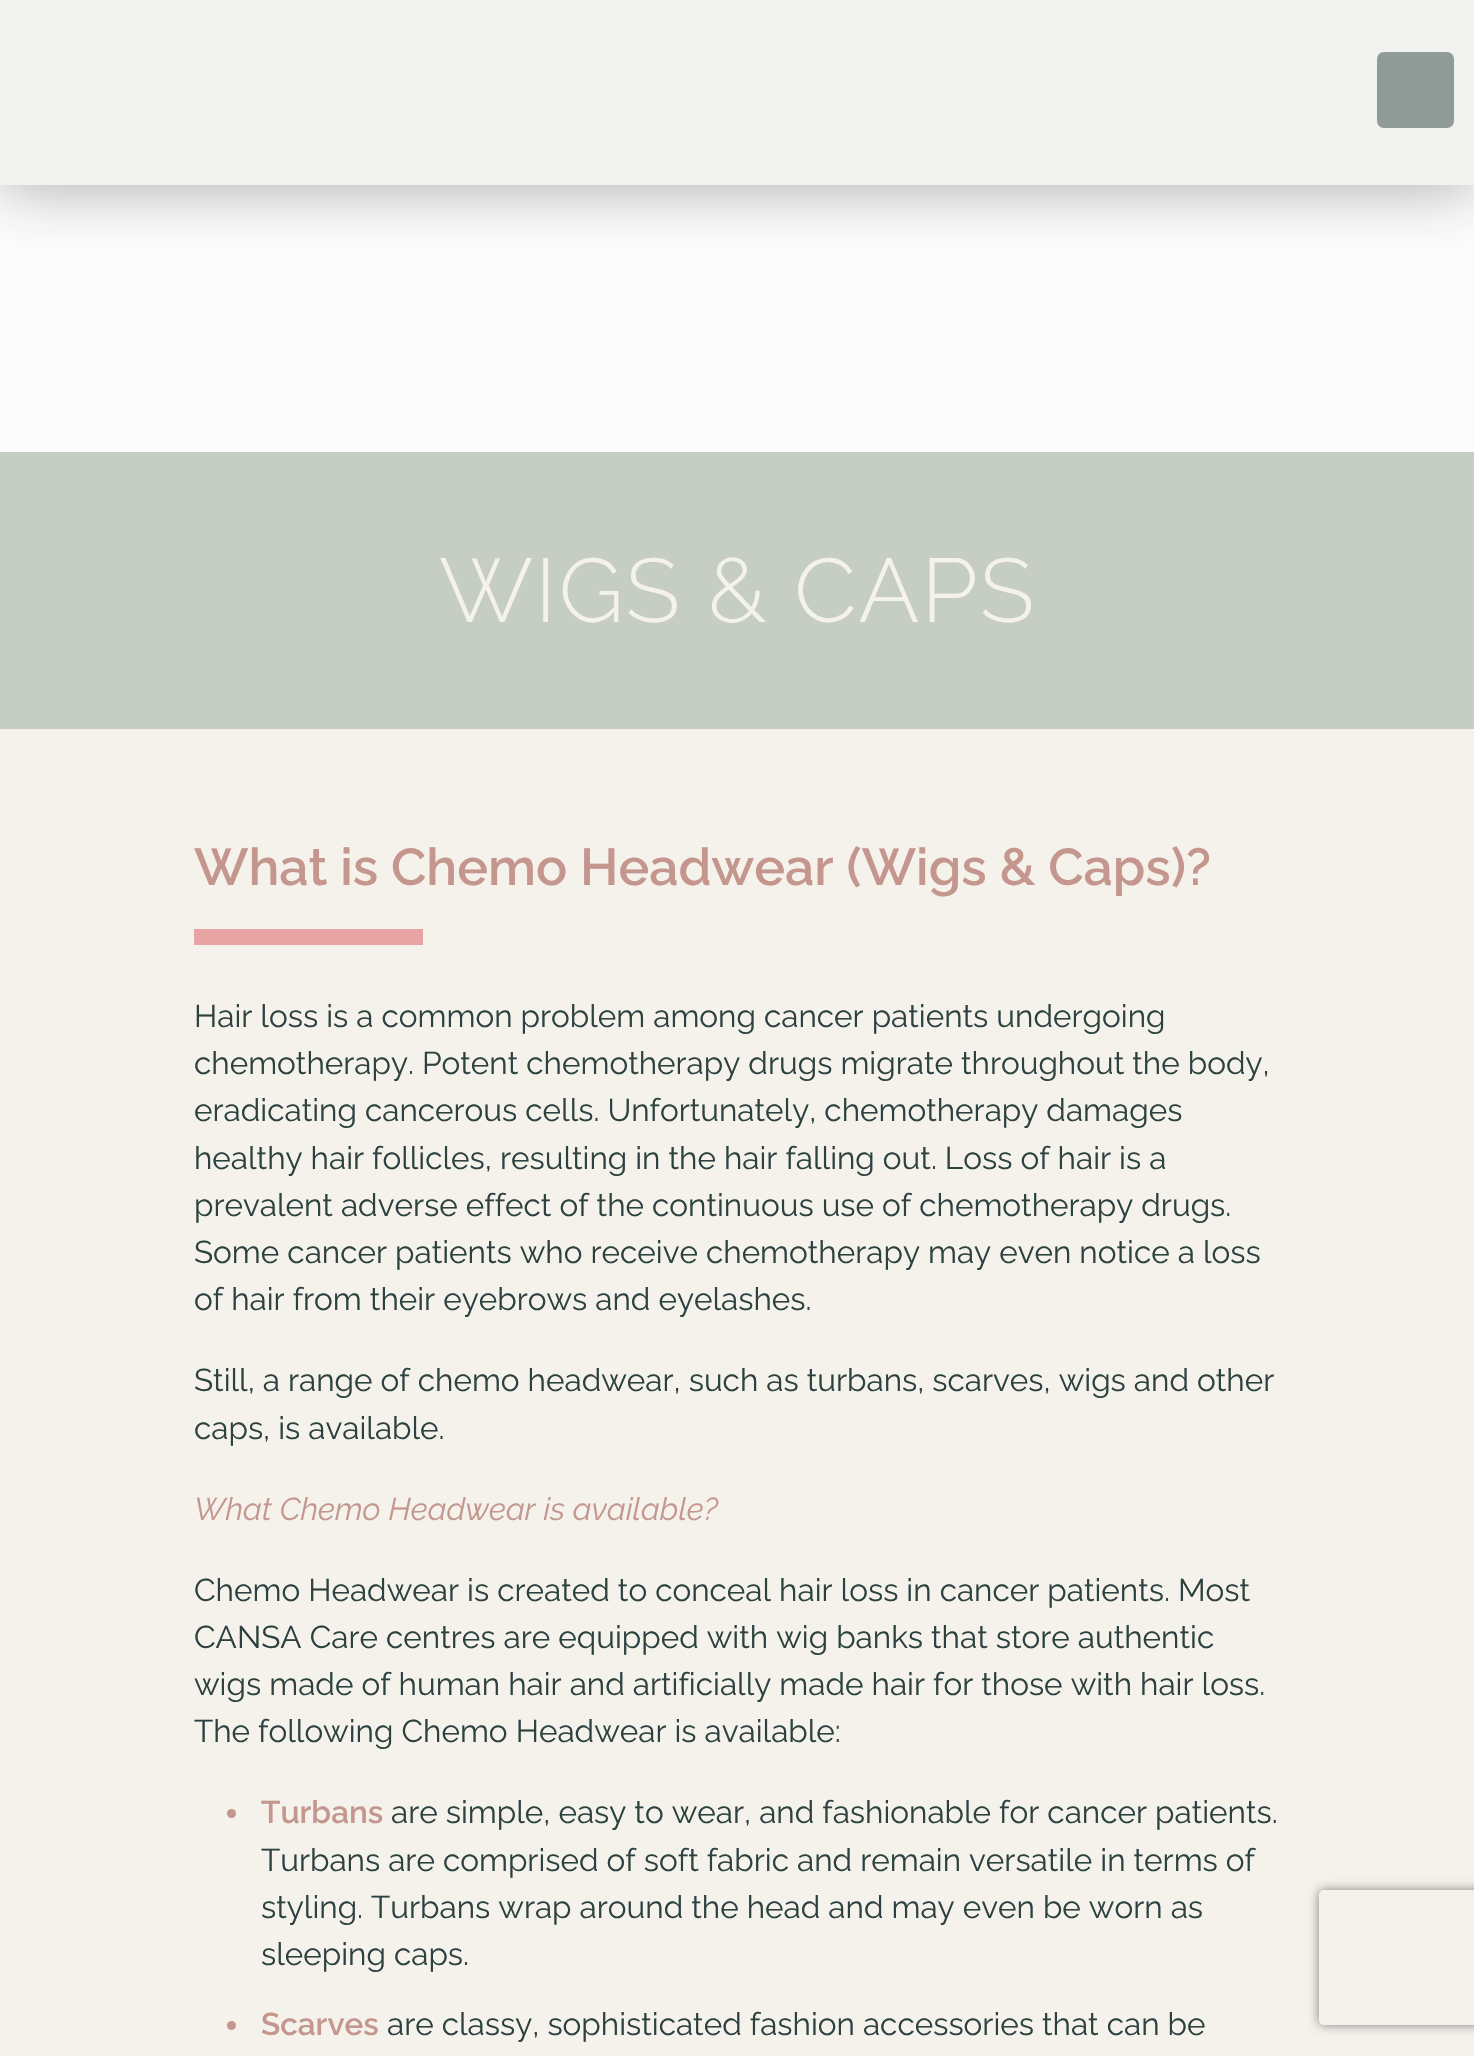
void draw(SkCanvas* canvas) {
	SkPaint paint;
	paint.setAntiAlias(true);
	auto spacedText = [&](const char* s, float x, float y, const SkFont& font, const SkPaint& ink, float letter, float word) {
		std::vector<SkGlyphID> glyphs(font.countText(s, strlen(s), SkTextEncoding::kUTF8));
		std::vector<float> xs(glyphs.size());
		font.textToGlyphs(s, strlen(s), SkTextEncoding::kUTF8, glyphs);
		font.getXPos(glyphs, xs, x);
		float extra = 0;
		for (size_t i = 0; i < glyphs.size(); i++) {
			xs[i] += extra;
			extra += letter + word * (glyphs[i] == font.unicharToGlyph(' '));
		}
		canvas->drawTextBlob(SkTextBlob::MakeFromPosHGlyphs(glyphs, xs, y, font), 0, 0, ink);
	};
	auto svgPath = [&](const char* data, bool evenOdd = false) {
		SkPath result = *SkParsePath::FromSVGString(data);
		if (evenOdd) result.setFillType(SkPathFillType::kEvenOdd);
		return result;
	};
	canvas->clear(0xfffcfcfc);
	paint.setColor(0x66242424);
	paint.setMaskFilter(SkMaskFilter::MakeBlur(kNormal_SkBlurStyle, 32.5));
	canvas->drawRect(SkRect::MakeXYWH(0, 0, 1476, 185), paint);
	paint.setMaskFilter(nullptr);
	paint.setColor(0xfff2f2f0);
	canvas->drawRect(SkRect::MakeXYWH(0, 0, 1474, 185), paint);
	paint.setColor(0xff8e9b97);
	canvas->drawRoundRect(SkRect::MakeXYWH(1377, 52, 77, 76), 7, 7, paint);
	paint.setColor(0xffc6cdc5);
	canvas->drawRect(SkRect::MakeXYWH(0, 452, 1474, 277), paint);
	SkFont f1(fontMgr->matchFamilyStyle("Raleway", SkFontStyle(300, SkFontStyle::kNormal_Width, SkFontStyle::kUpright_Slant)), 90);
	f1.setSubpixel(true);
	paint.setColor(0xfff4f2eb);
	spacedText("WIGS & CAPS", 439, 622, f1, paint, 2.25, 0);
	canvas->drawRect(SkRect::MakeXYWH(0, 729, 1474, 1327), paint);
	SkFont f2(fontMgr->matchFamilyStyle("Raleway", SkFontStyle(600, SkFontStyle::kNormal_Width, SkFontStyle::kUpright_Slant)), 51.75);
	f2.setSubpixel(true);
	paint.setColor(0xffc4968e);
	canvas->drawString("What is Chemo Headwear (Wigs & Caps)?", 194, 885, f2, paint);
	paint.setColor(0xffe6a4a4);
	canvas->drawRect(SkRect::MakeXYWH(194, 929, 229, 16), paint);
	SkFont f3(fontMgr->matchFamilyStyle("Raleway", SkFontStyle::Normal()), 31.5);
	f3.setSubpixel(true);
	paint.setColor(0xff2c4140);
	canvas->drawString("Hair loss is a common problem among cancer patients undergoing", 194, 1027, f3, paint);
	canvas->drawString("chemotherapy. Potent chemotherapy drugs migrate throughout the body,", 194, 1074, f3, paint);
	canvas->drawString("eradicating cancerous cells. Unfortunately, chemotherapy damages", 194, 1121, f3, paint);
	canvas->drawString("healthy hair follicles, resulting in the hair falling out. Loss of hair is a", 194, 1169, f3, paint);
	canvas->drawString("prevalent adverse effect of the continuous use of chemotherapy drugs.", 194, 1216, f3, paint);
	canvas->drawString("Some cancer patients who receive chemotherapy may even notice a loss", 194, 1263, f3, paint);
	canvas->drawString("of hair from their eyebrows and eyelashes.", 194, 1310, f3, paint);
	canvas->drawString("Still, a range of chemo headwear, such as turbans, scarves, wigs and other", 194, 1391, f3, paint);
	canvas->drawString("caps, is available.", 194, 1439, f3, paint);
	SkFont f4(fontMgr->matchFamilyStyle("Raleway", SkFontStyle::Italic()), 31.5);
	f4.setSubpixel(true);
	paint.setColor(0xffc4968e);
	canvas->drawString("What Chemo Headwear is available?", 194, 1520, f4, paint);
	paint.setColor(0xff2c4140);
	canvas->drawString("Chemo Headwear is created to conceal hair loss in cancer patients. Most", 194, 1601, f3, paint);
	canvas->drawString("CANSA Care centres are equipped with wig banks that store authentic", 194, 1648, f3, paint);
	canvas->drawString("wigs made of human hair and artificially made hair for those with hair loss.", 194, 1695, f3, paint);
	canvas->drawString("The following Chemo Headwear is available:", 194, 1742, f3, paint);
	paint.setColor(0xffc5968e);
	canvas->drawCircle(231.5, 1813.5, 4.5, paint);
	SkFont f5(fontMgr->matchFamilyStyle("Raleway", SkFontStyle(600, SkFontStyle::kNormal_Width, SkFontStyle::kUpright_Slant)), 31.5);
	f5.setSubpixel(true);
	paint.setColor(0xffc4968e);
	canvas->drawString("Turbans", 261, 1823, f5, paint);
	paint.setColor(0xff2c4140);
	canvas->drawString("are simple, easy to wear, and fashionable for cancer patients.", 391, 1823, f3, paint);
	canvas->drawString("Turbans are comprised of soft fabric and remain versatile in terms of", 261, 1871, f3, paint);
	canvas->drawString("styling. Turbans wrap around the head and may even be worn as", 261, 1918, f3, paint);
	canvas->drawString("sleeping caps.", 261, 1965, f3, paint);
	paint.setColor(0xffc5968e);
	canvas->drawCircle(231.5, 2025.5, 4.5, paint);
	paint.setColor(0xffc4968e);
	canvas->drawString("Scarves", 261, 2035, f5, paint);
	paint.setColor(0xff2c4140);
	canvas->drawString("are classy, sophisticated fashion accessories that can be", 387, 2035, f3, paint);
	canvas->save();
	canvas->clipPath(svgPath("M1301 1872H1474V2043H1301ZM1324 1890H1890C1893 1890 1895 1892 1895 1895V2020C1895 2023 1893 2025 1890 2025H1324C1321 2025 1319 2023 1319 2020V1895C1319 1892 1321 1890 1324 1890Z", true), true);
	paint.setColor(0xff808080);
	paint.setMaskFilter(SkMaskFilter::MakeBlur(kNormal_SkBlurStyle, 5.5));
	canvas->drawRoundRect(SkRect::MakeXYWH(1319, 1890, 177, 135), 5, 5, paint);
	paint.setMaskFilter(nullptr);
	canvas->restore();
}
